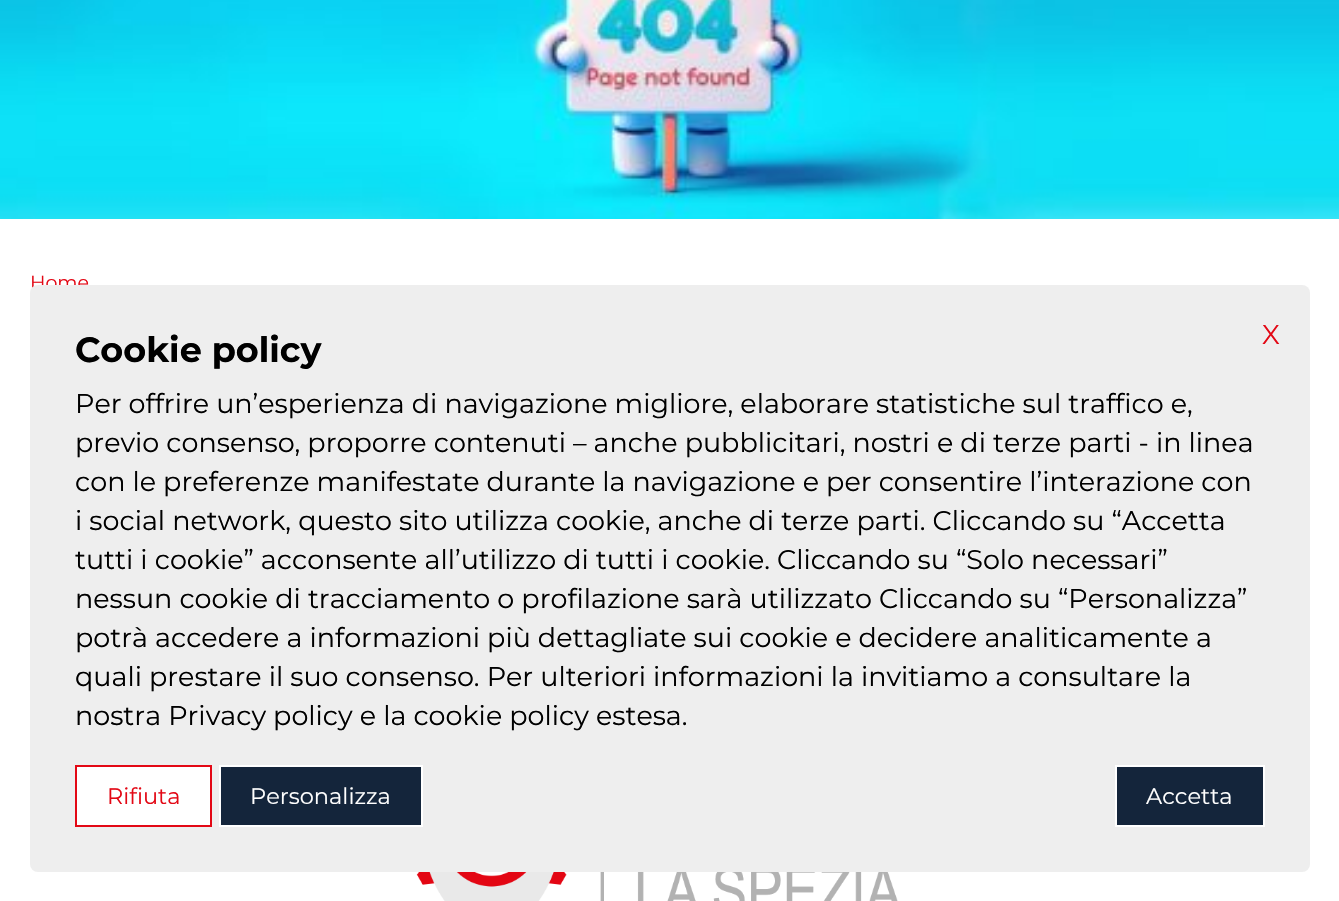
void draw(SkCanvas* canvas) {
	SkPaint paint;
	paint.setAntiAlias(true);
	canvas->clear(0xffffffff);
	canvas->drawImageRect(SkImages::DeferredFromEncodedData(SkData::MakeFromFileName("img1.png")), SkRect::MakeXYWH(0, 0, 1339, 219), SkSamplingOptions());
	SkFont f1(fontMgr->matchFamilyStyle("Montserrat", SkFontStyle::Normal()), 19);
	f1.setSubpixel(true);
	paint.setColor(0xffe30815);
	canvas->drawString("Home", 30, 289, f1, paint);
	canvas->drawImageRect(SkImages::DeferredFromEncodedData(SkData::MakeFromFileName("img2.png")), SkRect::MakeXYWH(416, 872, 482, 29), SkSamplingOptions());
	paint.setColor(0xffeeeeee);
	canvas->drawRoundRect(SkRect::MakeXYWH(30, 285, 1280, 587), 8, 8, paint);
	SkFont f2(fontMgr->matchFamilyStyle("Montserrat", SkFontStyle::Bold()), 35);
	f2.setSubpixel(true);
	paint.setColor(0xff000000);
	canvas->drawString("Cookie policy", 75, 362, f2, paint);
	SkFont f3(fontMgr->matchFamilyStyle("Montserrat", SkFontStyle::Normal()), 27);
	f3.setSubpixel(true);
	canvas->drawString("Per offrire un’esperienza di navigazione migliore, elaborare statistiche sul traffico e,", 75, 413, f3, paint);
	canvas->drawString("previo consenso, proporre contenuti – anche pubblicitari, nostri e di terze parti - in linea", 75, 452, f3, paint);
	canvas->drawString("con le preferenze manifestate durante la navigazione e per consentire l’interazione con", 75, 491, f3, paint);
	canvas->drawString("i social network, questo sito utilizza cookie, anche di terze parti. Cliccando su “Accetta", 75, 530, f3, paint);
	canvas->drawString("tutti i cookie” acconsente all’utilizzo di tutti i cookie. Cliccando su “Solo necessari”", 75, 569, f3, paint);
	canvas->drawString("nessun cookie di tracciamento o profilazione sarà utilizzato Cliccando su “Personalizza”", 75, 608, f3, paint);
	canvas->drawString("potrà accedere a informazioni più dettagliate sui cookie e decidere analiticamente a", 75, 647, f3, paint);
	canvas->drawString("quali prestare il suo consenso. Per ulteriori informazioni la invitiamo a consultare la", 75, 686, f3, paint);
	canvas->drawString("nostra Privacy policy e la cookie policy estesa.", 75, 725, f3, paint);
	paint.setColor(0xffffffff);
	canvas->drawRect(SkRect::MakeXYWH(76, 766, 135, 60), paint);
	paint.setStroke(true);
	paint.setStrokeWidth(2);
	paint.setColor(0xffe30815);
	canvas->drawRect(SkRect::MakeXYWH(76, 766, 135, 60), paint);
	SkFont f4(fontMgr->matchFamilyStyle("Montserrat", SkFontStyle::Normal()), 22.5);
	f4.setSubpixel(true);
	paint.setStroke(false);
	canvas->drawString("Rifiuta", 107, 804, f4, paint);
	paint.setColor(0xff14253b);
	canvas->drawRect(SkRect::MakeXYWH(220, 766, 202, 60), paint);
	paint.setStroke(true);
	paint.setColor(0xffffffff);
	canvas->drawRect(SkRect::MakeXYWH(220, 766, 202, 60), paint);
	paint.setStroke(false);
	canvas->drawString("Personalizza", 250, 804, f4, paint);
	paint.setColor(0xff14253b);
	canvas->drawRect(SkRect::MakeXYWH(1116, 766, 148, 60), paint);
	paint.setStroke(true);
	paint.setColor(0xffffffff);
	canvas->drawRect(SkRect::MakeXYWH(1116, 766, 148, 60), paint);
	paint.setStroke(false);
	canvas->drawString("Accetta", 1146, 804, f4, paint);
	paint.setColor(0xffe30815);
	canvas->drawString("X", 1262, 344, f3, paint);
}
